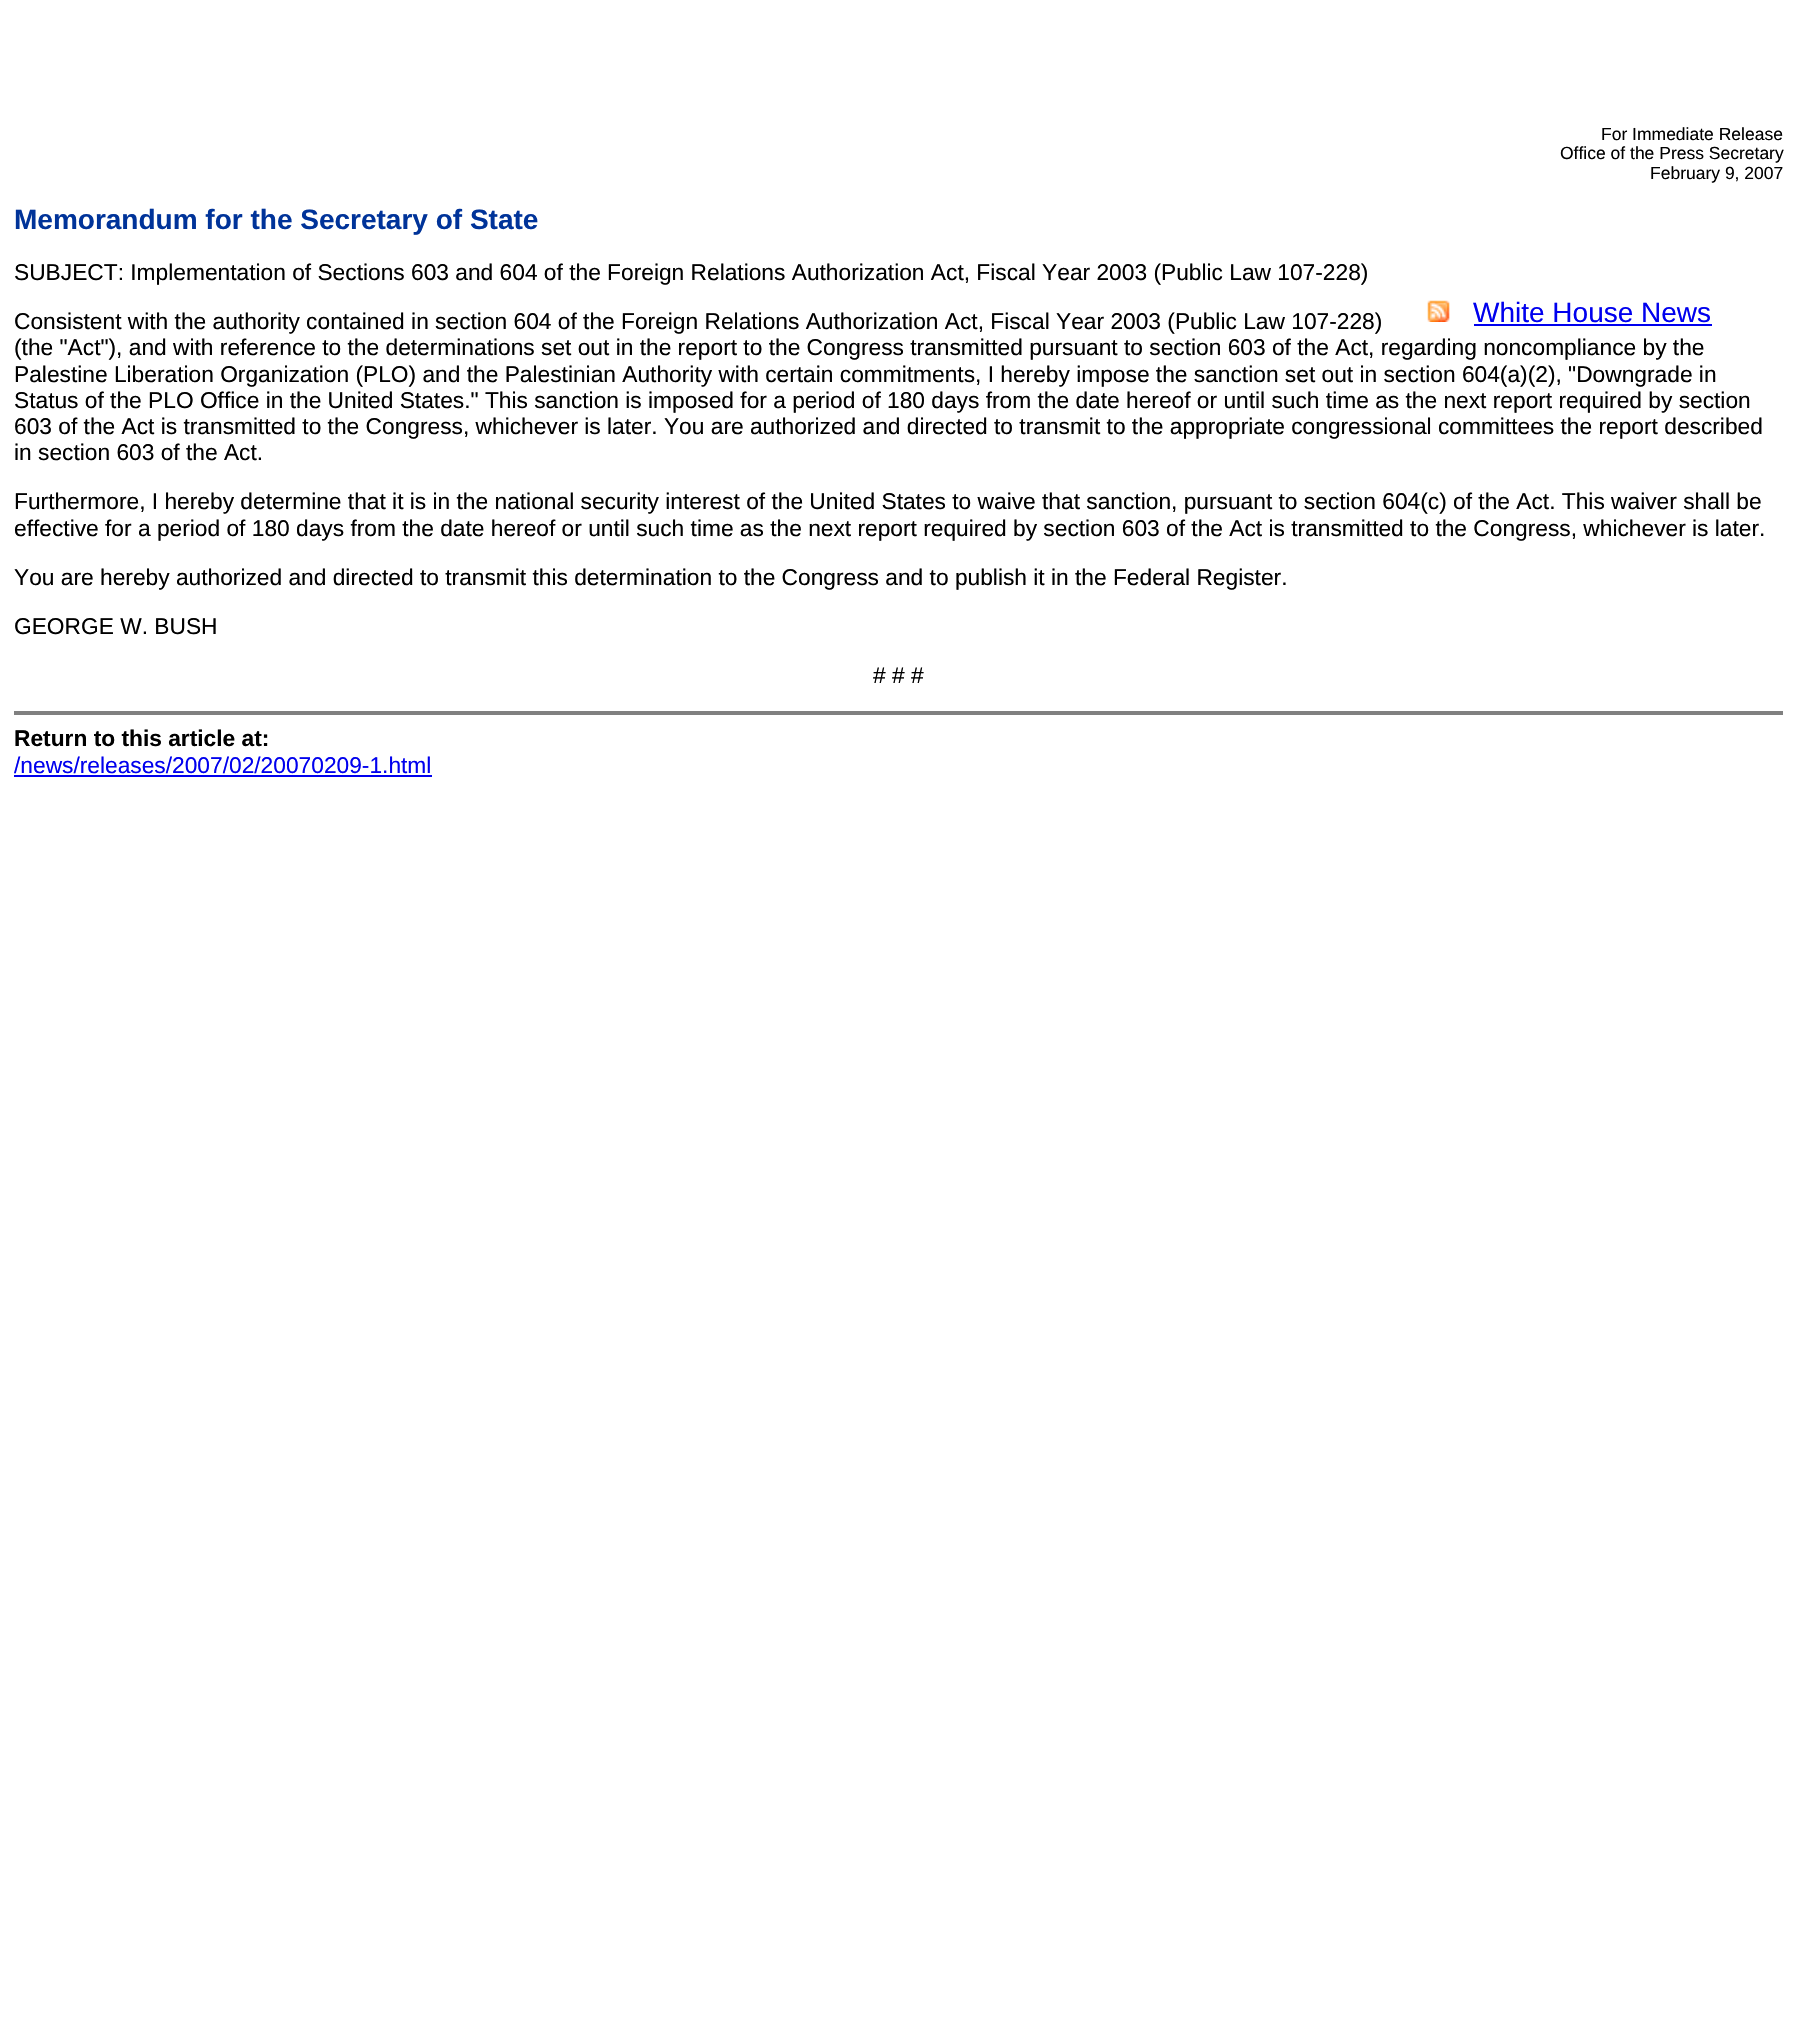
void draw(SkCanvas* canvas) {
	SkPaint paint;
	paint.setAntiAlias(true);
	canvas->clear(0xffffffff);
	SkFont f1(fontMgr->matchFamilyStyle("Liberation Sans", SkFontStyle::Normal()), 17.5);
	f1.setSubpixel(true);
	paint.setColor(0xff000000);
	canvas->drawString("For Immediate Release", 1601, 140, f1, paint);
	canvas->drawString("Office of the Press Secretary", 1560, 159, f1, paint);
	canvas->drawString("February 9, 2007", 1650, 179, f1, paint);
	SkFont f2(fontMgr->matchFamilyStyle("Liberation Sans", SkFontStyle::Bold()), 28);
	f2.setSubpixel(true);
	paint.setColor(0xff003399);
	canvas->drawString("Memorandum for the Secretary of State", 14, 229, f2, paint);
	SkFont f3(fontMgr->matchFamilyStyle("Liberation Sans", SkFontStyle::Normal()), 22.75);
	f3.setSubpixel(true);
	paint.setColor(0xff000000);
	canvas->drawString("SUBJECT: Implementation of Sections 603 and 604 of the Foreign Relations Authorization Act, Fiscal Year 2003 (Public Law 107-228)", 14, 280, f3, paint);
	canvas->drawImageRect(SkImages::DeferredFromEncodedData(SkData::MakeFromFileName("img1.png")), SkRect::MakeXYWH(1427, 300, 23, 22), SkSamplingOptions());
	SkFont f4(fontMgr->matchFamilyStyle("Liberation Sans", SkFontStyle::Normal()), 28);
	f4.setSubpixel(true);
	paint.setColor(0xff0000ee);
	canvas->drawString("White House News", 1473, 322, f4, paint);
	canvas->drawRect(SkRect::MakeXYWH(1474, 324, 238, 2), paint);
	paint.setColor(0xff000000);
	canvas->drawString("Consistent with the authority contained in section 604 of the Foreign Relations Authorization Act, Fiscal Year 2003 (Public Law 107-228)", 14, 329, f3, paint);
	canvas->drawString("(the \"Act\"), and with reference to the determinations set out in the report to the Congress transmitted pursuant to section 603 of the Act, regarding noncompliance by the", 14, 355, f3, paint);
	canvas->drawString("Palestine Liberation Organization (PLO) and the Palestinian Authority with certain commitments, I hereby impose the sanction set out in section 604(a)(2), \"Downgrade in", 14, 382, f3, paint);
	canvas->drawString("Status of the PLO Office in the United States.\" This sanction is imposed for a period of 180 days from the date hereof or until such time as the next report required by section", 14, 408, f3, paint);
	canvas->drawString("603 of the Act is transmitted to the Congress, whichever is later. You are authorized and directed to transmit to the appropriate congressional committees the report described", 14, 434, f3, paint);
	canvas->drawString("in section 603 of the Act.", 14, 460, f3, paint);
	canvas->drawString("Furthermore, I hereby determine that it is in the national security interest of the United States to waive that sanction, pursuant to section 604(c) of the Act. This waiver shall be", 14, 509, f3, paint);
	canvas->drawString("effective for a period of 180 days from the date hereof or until such time as the next report required by section 603 of the Act is transmitted to the Congress, whichever is later.", 14, 536, f3, paint);
	canvas->drawString("You are hereby authorized and directed to transmit this determination to the Congress and to publish it in the Federal Register.", 14, 585, f3, paint);
	canvas->drawString("GEORGE W. BUSH", 14, 634, f3, paint);
	canvas->drawString("# # #", 873, 683, f3, paint);
	paint.setColor(0xff808080);
	canvas->drawRect(SkRect::MakeXYWH(14, 711, 1769, 4), paint);
	SkFont f5(fontMgr->matchFamilyStyle("Liberation Sans", SkFontStyle::Bold()), 22.75);
	f5.setSubpixel(true);
	paint.setColor(0xff000000);
	canvas->drawString("Return to this article at:", 14, 746, f5, paint);
	paint.setColor(0xff0000ee);
	canvas->drawString("/news/releases/2007/02/20070209-1.html", 14, 773, f3, paint);
	canvas->drawRect(SkRect::MakeXYWH(14, 775, 418, 2), paint);
}
